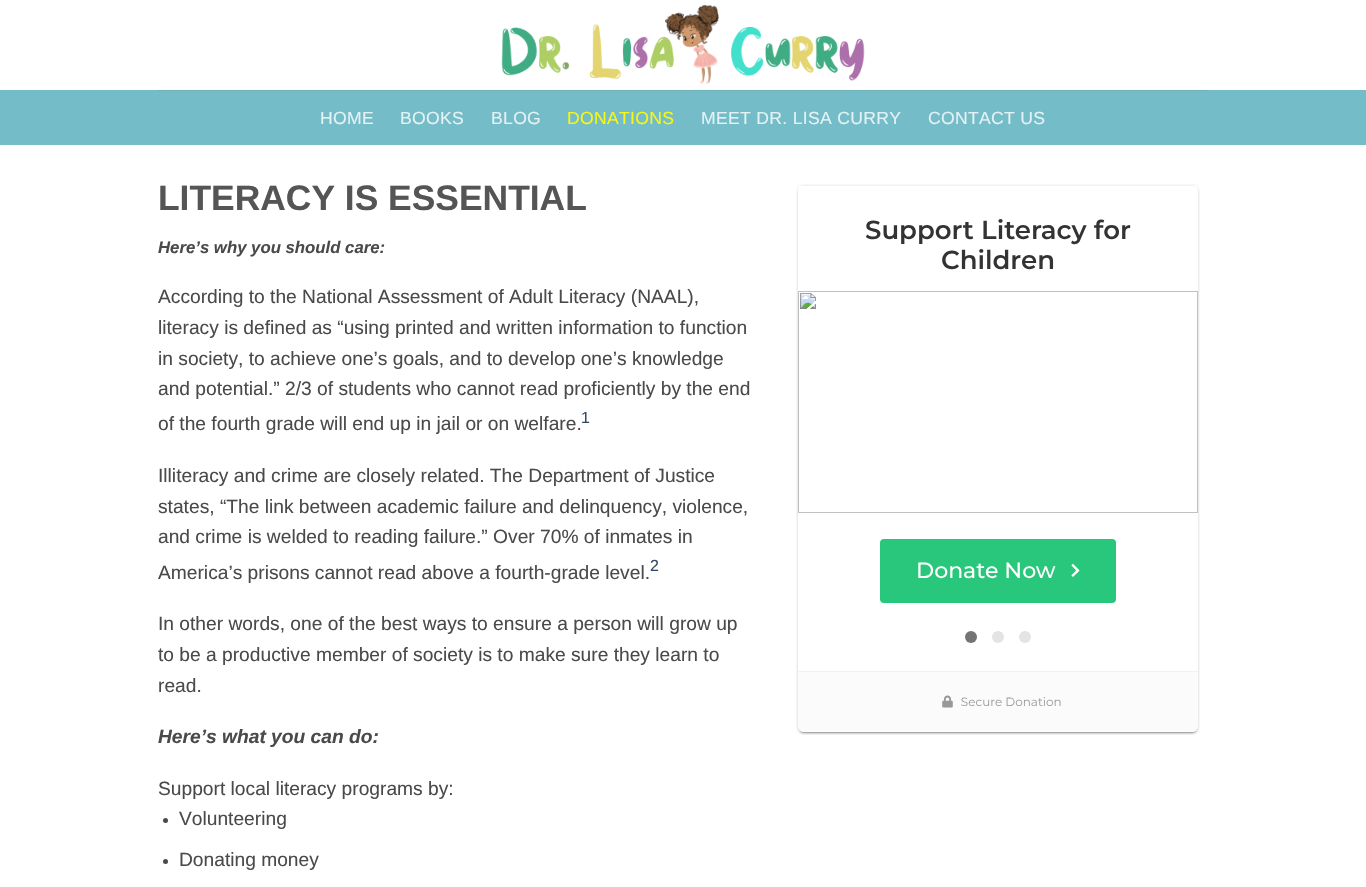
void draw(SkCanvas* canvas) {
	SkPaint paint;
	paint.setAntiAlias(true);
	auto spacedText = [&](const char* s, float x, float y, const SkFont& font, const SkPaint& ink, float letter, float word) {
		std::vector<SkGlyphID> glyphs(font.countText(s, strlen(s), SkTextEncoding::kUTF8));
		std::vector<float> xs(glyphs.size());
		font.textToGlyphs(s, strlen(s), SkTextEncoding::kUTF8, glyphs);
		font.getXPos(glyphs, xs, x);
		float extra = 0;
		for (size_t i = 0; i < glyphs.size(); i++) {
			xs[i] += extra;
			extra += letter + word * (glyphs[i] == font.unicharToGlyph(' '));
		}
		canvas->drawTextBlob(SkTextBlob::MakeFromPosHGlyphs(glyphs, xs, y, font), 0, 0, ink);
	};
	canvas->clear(0xffffffff);
	canvas->drawImageRect(SkImages::DeferredFromEncodedData(SkData::MakeFromFileName("img1.png")), SkRect::MakeXYWH(501, 4, 364, 80), SkSamplingOptions());
	paint.setColor(0xff74bcc8);
	canvas->drawRect(SkRect::MakeXYWH(0, 90, 1366, 55), paint);
	paint.setColor(0xff70b1bb);
	canvas->drawRect(SkRect::MakeXYWH(158, 90, 1050, 1), paint);
	SkFont f1(fontMgr->matchFamilyStyle("Liberation Sans", SkFontStyle::Normal()), 17.6);
	f1.setSubpixel(true);
	paint.setColor(0xffe3f2f4);
	spacedText("HOME", 320, 124, f1, paint, 0.3, 0);
	spacedText("BOOKS", 400, 124, f1, paint, 0.3, 0);
	spacedText("BLOG", 491, 124, f1, paint, 0.3, 0);
	paint.setColor(0xfff6f617);
	spacedText("DONATIONS", 567, 124, f1, paint, 0.3, 0);
	paint.setColor(0xffe3f2f4);
	spacedText("MEET DR. LISA CURRY", 701, 124, f1, paint, 0.3, 0);
	spacedText("CONTACT US", 928, 124, f1, paint, 0.3, 0);
	SkFont f2(fontMgr->matchFamilyStyle("Liberation Sans", SkFontStyle::Bold()), 35.4);
	f2.setSubpixel(true);
	paint.setColor(0xff555555);
	canvas->drawString("LITERACY IS ESSENTIAL", 158, 210, f2, paint);
	SkFont f3(fontMgr->matchFamilyStyle("Liberation Sans", SkFontStyle::BoldItalic()), 16.75);
	f3.setSubpixel(true);
	paint.setColor(0xff4a4a4a);
	canvas->drawString("Here’s why you should care:", 158, 253, f3, paint);
	SkFont f4(fontMgr->matchFamilyStyle("Liberation Sans", SkFontStyle::Normal()), 19.2);
	f4.setSubpixel(true);
	canvas->drawString("According to the National Assessment of Adult Literacy (NAAL),", 158, 303, f4, paint);
	canvas->drawString("literacy is defined as “using printed and written information to function", 158, 334, f4, paint);
	canvas->drawString("in society, to achieve one’s goals, and to develop one’s knowledge", 158, 365, f4, paint);
	canvas->drawString("and potential.” 2/3 of students who cannot read proficiently by the end", 158, 395, f4, paint);
	canvas->drawString("of the fourth grade will end up in jail or on welfare.", 158, 430, f4, paint);
	SkFont f5(fontMgr->matchFamilyStyle("Liberation Sans", SkFontStyle::Normal()), 16);
	f5.setSubpixel(true);
	paint.setColor(0xff334862);
	canvas->drawString("1", 581, 423, f5, paint);
	paint.setColor(0xff4a4a4a);
	canvas->drawString("Illiteracy and crime are closely related. The Department of Justice", 158, 482, f4, paint);
	canvas->drawString("states, “The link between academic failure and delinquency, violence,", 158, 513, f4, paint);
	canvas->drawString("and crime is welded to reading failure.” Over 70% of inmates in", 158, 543, f4, paint);
	canvas->drawString("America’s prisons cannot read above a fourth-grade level.", 158, 579, f4, paint);
	paint.setColor(0xff334862);
	canvas->drawString("2", 650, 571, f5, paint);
	paint.setColor(0xff4a4a4a);
	canvas->drawString("In other words, one of the best ways to ensure a person will grow up", 158, 630, f4, paint);
	canvas->drawString("to be a productive member of society is to make sure they learn to", 158, 661, f4, paint);
	canvas->drawString("read.", 158, 692, f4, paint);
	SkFont f6(fontMgr->matchFamilyStyle("Liberation Sans", SkFontStyle::BoldItalic()), 19.2);
	f6.setSubpixel(true);
	canvas->drawString("Here’s what you can do:", 158, 743, f6, paint);
	canvas->drawString("Support local literacy programs by:", 158, 795, f4, paint);
	canvas->drawCircle(165.5, 820.5, 2.5, paint);
	canvas->drawString("Volunteering", 179, 825, f4, paint);
	canvas->drawCircle(165.5, 861.5, 2.5, paint);
	canvas->drawString("Donating money", 179, 866, f4, paint);
	canvas->drawImageRect(SkImages::DeferredFromEncodedData(SkData::MakeFromFileName("img2.png")), SkRect::MakeXYWH(796, 184, 404, 551), SkSamplingOptions());
}
